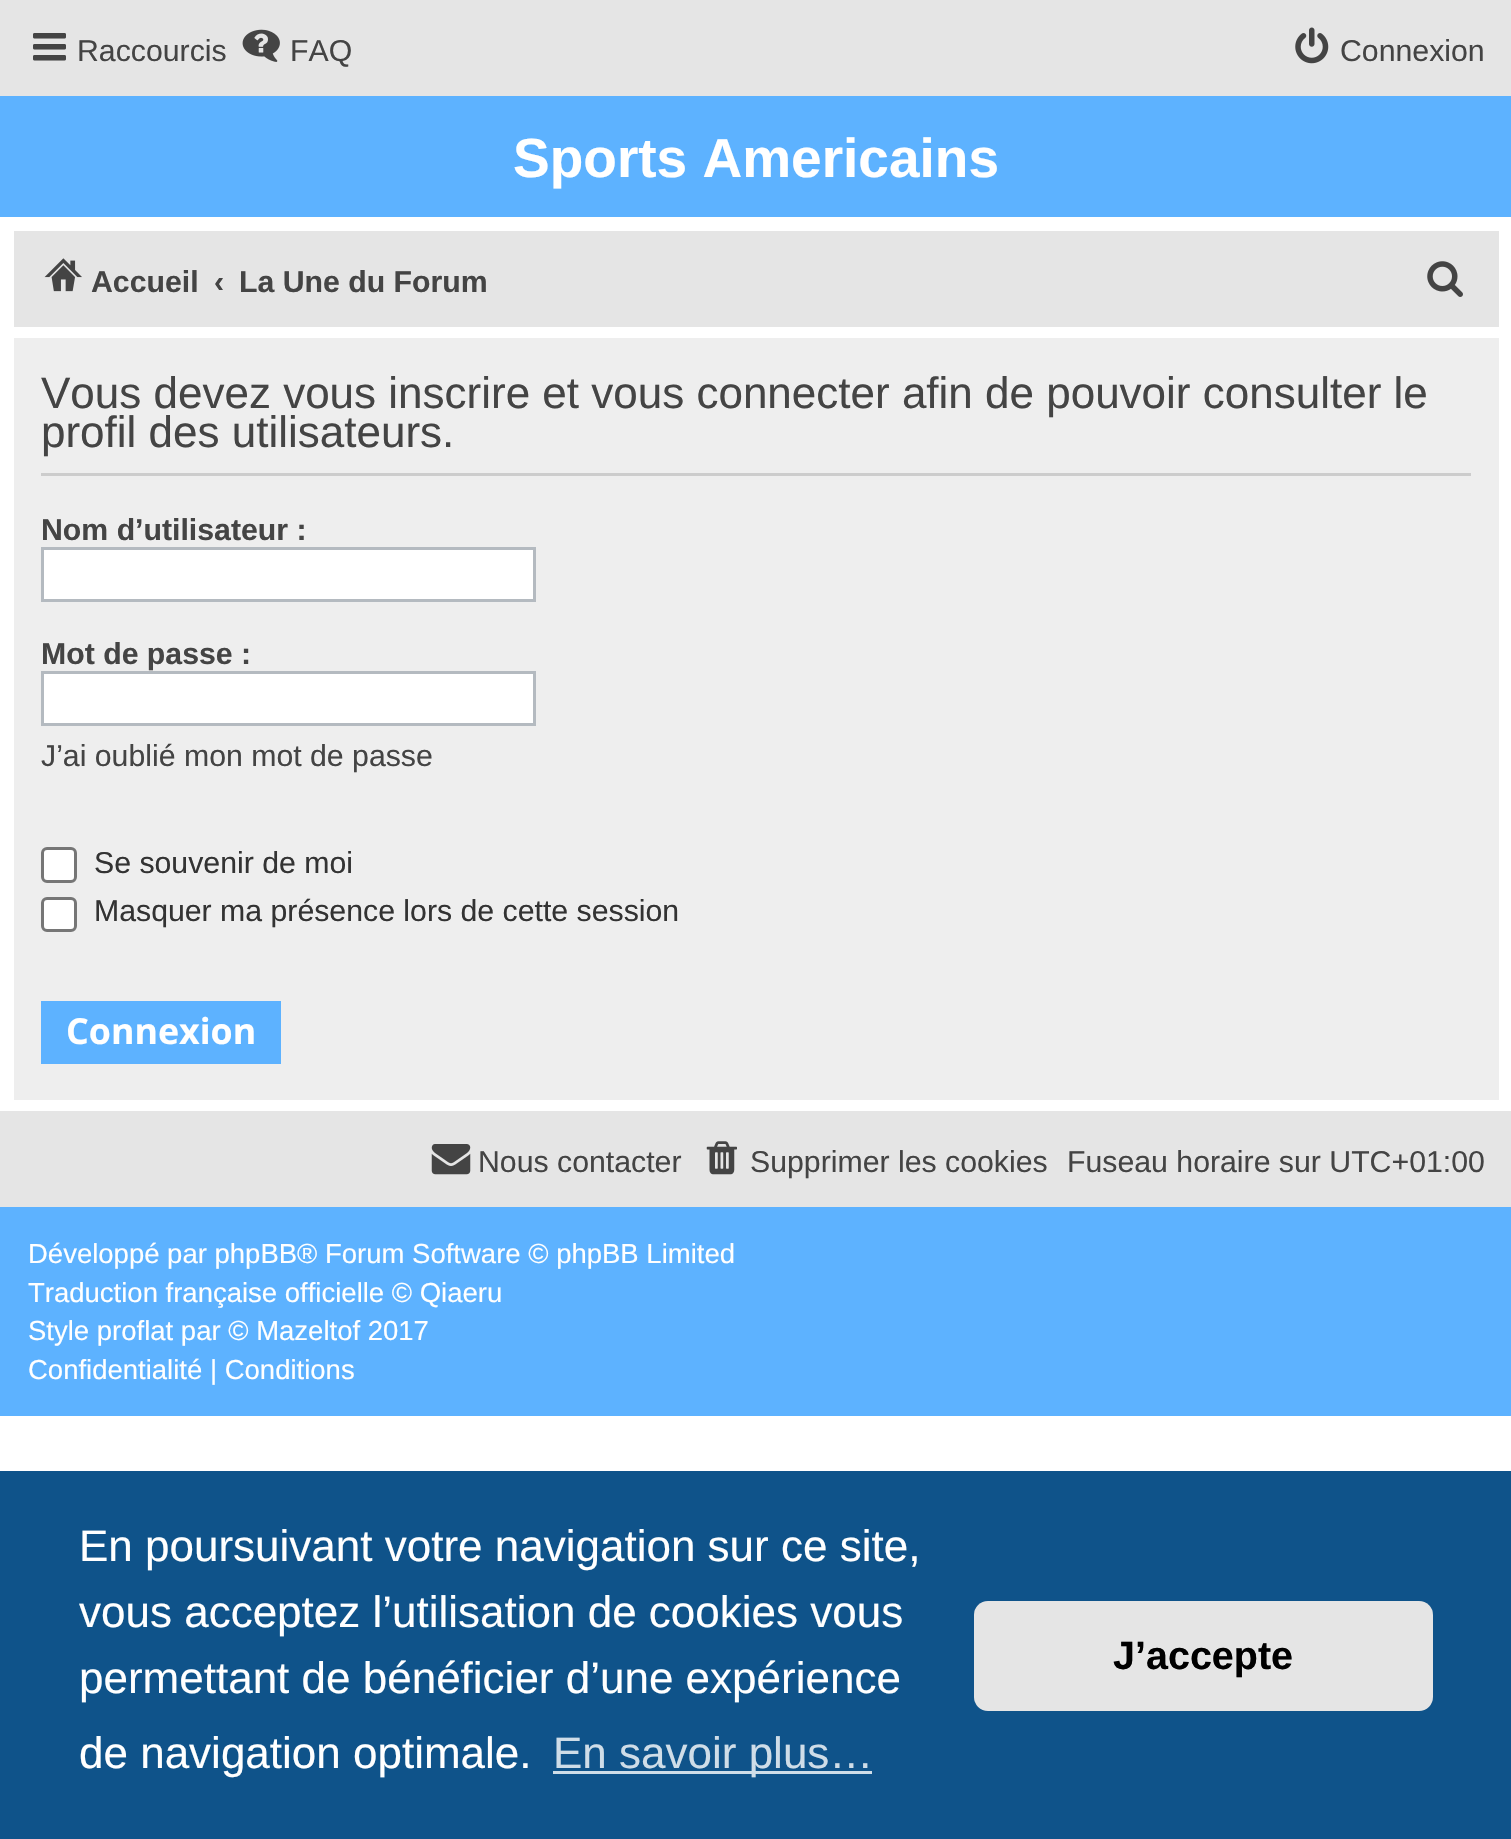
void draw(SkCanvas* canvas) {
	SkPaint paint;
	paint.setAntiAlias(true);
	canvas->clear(0xffffffff);
	paint.setColor(0xffe5e5e5);
	canvas->drawRect(SkRect::MakeXYWH(0, 0, 1511, 96), paint);
	canvas->drawImageRect(SkImages::DeferredFromEncodedData(SkData::MakeFromFileName("img1.png")), SkRect::MakeXYWH(33, 33, 33, 28), SkSamplingOptions());
	SkFont f1(fontMgr->matchFamilyStyle("Liberation Sans", SkFontStyle::Normal()), 30.25);
	f1.setSubpixel(true);
	paint.setColor(0xff444444);
	canvas->drawString("Raccourcis", 77, 61, f1, paint);
	canvas->drawImageRect(SkImages::DeferredFromEncodedData(SkData::MakeFromFileName("img2.png")), SkRect::MakeXYWH(242, 29, 38, 33), SkSamplingOptions());
	canvas->drawString("FAQ", 290, 61, f1, paint);
	canvas->drawImageRect(SkImages::DeferredFromEncodedData(SkData::MakeFromFileName("img3.png")), SkRect::MakeXYWH(1295, 27, 34, 37), SkSamplingOptions());
	canvas->drawString("Connexion", 1340, 61, f1, paint);
	paint.setColor(0xff5db2ff);
	canvas->drawRect(SkRect::MakeXYWH(0, 96, 1511, 121), paint);
	SkFont f2(fontMgr->matchFamilyStyle("Liberation Sans", SkFontStyle::Bold()), 55);
	f2.setSubpixel(true);
	paint.setColor(0xffffffff);
	canvas->drawString("Sports Americains", 513, 177, f2, paint);
	paint.setColor(0xffe5e5e5);
	canvas->drawRect(SkRect::MakeXYWH(14, 231, 1485, 96), paint);
	canvas->drawImageRect(SkImages::DeferredFromEncodedData(SkData::MakeFromFileName("img4.png")), SkRect::MakeXYWH(44, 258, 38, 34), SkSamplingOptions());
	SkFont f3(fontMgr->matchFamilyStyle("Liberation Sans", SkFontStyle::Bold()), 30.25);
	f3.setSubpixel(true);
	paint.setColor(0xff444444);
	canvas->drawString("Accueil", 91, 292, f3, paint);
	canvas->drawString("‹", 214, 292, f3, paint);
	canvas->drawString("La Une du Forum", 239, 292, f3, paint);
	canvas->drawImageRect(SkImages::DeferredFromEncodedData(SkData::MakeFromFileName("img5.png")), SkRect::MakeXYWH(1427, 261, 36, 36), SkSamplingOptions());
	paint.setColor(0xffeeeeee);
	canvas->drawRect(SkRect::MakeXYWH(14, 338, 1485, 762), paint);
	paint.setColor(0xffcccccc);
	canvas->drawRect(SkRect::MakeXYWH(41, 473, 1430, 3), paint);
	SkFont f4(fontMgr->matchFamilyStyle("Liberation Sans", SkFontStyle::Normal()), 44);
	f4.setSubpixel(true);
	paint.setColor(0xff444444);
	canvas->drawString("Vous devez vous inscrire et vous connecter afin de pouvoir consulter le", 41, 408, f4, paint);
	canvas->drawString("profil des utilisateurs.", 41, 447, f4, paint);
	canvas->drawString("Nom d’utilisateur :", 41, 540, f3, paint);
	paint.setColor(0xffffffff);
	canvas->drawRect(SkRect::MakeXYWH(42.5, 548.5, 492, 52), paint);
	paint.setStroke(true);
	paint.setStrokeWidth(3);
	paint.setColor(0xffb4bac0);
	canvas->drawRect(SkRect::MakeXYWH(42.5, 548.5, 492, 52), paint);
	paint.setStroke(false);
	paint.setColor(0xff444444);
	canvas->drawString("Mot de passe :", 41, 664, f3, paint);
	paint.setColor(0xffffffff);
	canvas->drawRect(SkRect::MakeXYWH(42.5, 672.5, 492, 52), paint);
	paint.setStroke(true);
	paint.setColor(0xffb4bac0);
	canvas->drawRect(SkRect::MakeXYWH(42.5, 672.5, 492, 52), paint);
	paint.setStroke(false);
	paint.setColor(0xff444444);
	canvas->drawString("J’ai oublié mon mot de passe", 41, 766, f1, paint);
	paint.setColor(0xffffffff);
	canvas->drawRoundRect(SkRect::MakeXYWH(42.5, 848.5, 33, 33), 4.5, 4.5, paint);
	paint.setStroke(true);
	paint.setColor(0xff767676);
	canvas->drawRoundRect(SkRect::MakeXYWH(42.5, 848.5, 33, 33), 4.5, 4.5, paint);
	paint.setStroke(false);
	paint.setColor(0xff333333);
	canvas->drawString("Se souvenir de moi", 94, 873, f1, paint);
	paint.setColor(0xffffffff);
	canvas->drawRoundRect(SkRect::MakeXYWH(42.5, 898.5, 33, 32), 4.5, 4.5, paint);
	paint.setStroke(true);
	paint.setColor(0xff767676);
	canvas->drawRoundRect(SkRect::MakeXYWH(42.5, 898.5, 33, 32), 4.5, 4.5, paint);
	paint.setStroke(false);
	paint.setColor(0xff333333);
	canvas->drawString("Masquer ma présence lors de cette session", 94, 921, f1, paint);
	paint.setColor(0xff5db2ff);
	canvas->drawRect(SkRect::MakeXYWH(41, 1001, 240, 63), paint);
	SkFont f5(fontMgr->matchFamilyStyle("Open Sans", SkFontStyle::Bold()), 35.75);
	f5.setSubpixel(true);
	paint.setColor(0xffffffff);
	canvas->drawString("Connexion", 66, 1044, f5, paint);
	paint.setColor(0xffe5e5e5);
	canvas->drawRect(SkRect::MakeXYWH(0, 1111, 1511, 96), paint);
	canvas->drawImageRect(SkImages::DeferredFromEncodedData(SkData::MakeFromFileName("img6.png")), SkRect::MakeXYWH(431, 1144, 40, 31), SkSamplingOptions());
	paint.setColor(0xff444444);
	canvas->drawString("Nous contacter", 478, 1172, f1, paint);
	canvas->drawImageRect(SkImages::DeferredFromEncodedData(SkData::MakeFromFileName("img7.png")), SkRect::MakeXYWH(706, 1141, 31, 34), SkSamplingOptions());
	canvas->drawString("Supprimer les cookies", 750, 1172, f1, paint);
	canvas->drawString("Fuseau horaire sur UTC+01:00", 1067, 1172, f1, paint);
	paint.setColor(0xff5db2ff);
	canvas->drawRect(SkRect::MakeXYWH(0, 1207, 1511, 209), paint);
	SkFont f6(fontMgr->matchFamilyStyle("Liberation Sans", SkFontStyle::Normal()), 27.5);
	f6.setSubpixel(true);
	paint.setColor(0xffffffff);
	canvas->drawString("Développé par phpBB® Forum Software © phpBB Limited", 28, 1263, f6, paint);
	canvas->drawString("Traduction française officielle © Qiaeru", 28, 1302, f6, paint);
	canvas->drawString("Style proflat par © Mazeltof 2017", 28, 1340, f6, paint);
	canvas->drawString("Confidentialité | Conditions", 28, 1379, f6, paint);
	paint.setColor(0xff0f538a);
	canvas->drawRect(SkRect::MakeXYWH(0, 1471, 1511, 368), paint);
	paint.setColor(0xffffffff);
	canvas->drawString("En poursuivant votre navigation sur ce site,", 79, 1561, f4, paint);
	canvas->drawString("vous acceptez l’utilisation de cookies vous", 79, 1627, f4, paint);
	canvas->drawString("permettant de bénéficier d’une expérience", 79, 1693, f4, paint);
	canvas->drawString("de navigation optimale.", 79, 1768, f4, paint);
	paint.setColor(0xffcfdde8);
	canvas->drawRect(SkRect::MakeXYWH(553, 1771, 319, 3), paint);
	canvas->drawString("En savoir plus…", 553, 1768, f4, paint);
	paint.setColor(0xffe5e5e5);
	canvas->drawRoundRect(SkRect::MakeXYWH(974, 1601, 459, 110), 14, 14, paint);
	SkFont f7(fontMgr->matchFamilyStyle("Liberation Sans", SkFontStyle::Bold()), 39.5);
	f7.setSubpixel(true);
	paint.setColor(0xff000000);
	canvas->drawString("J’accepte", 1113, 1669, f7, paint);
}
